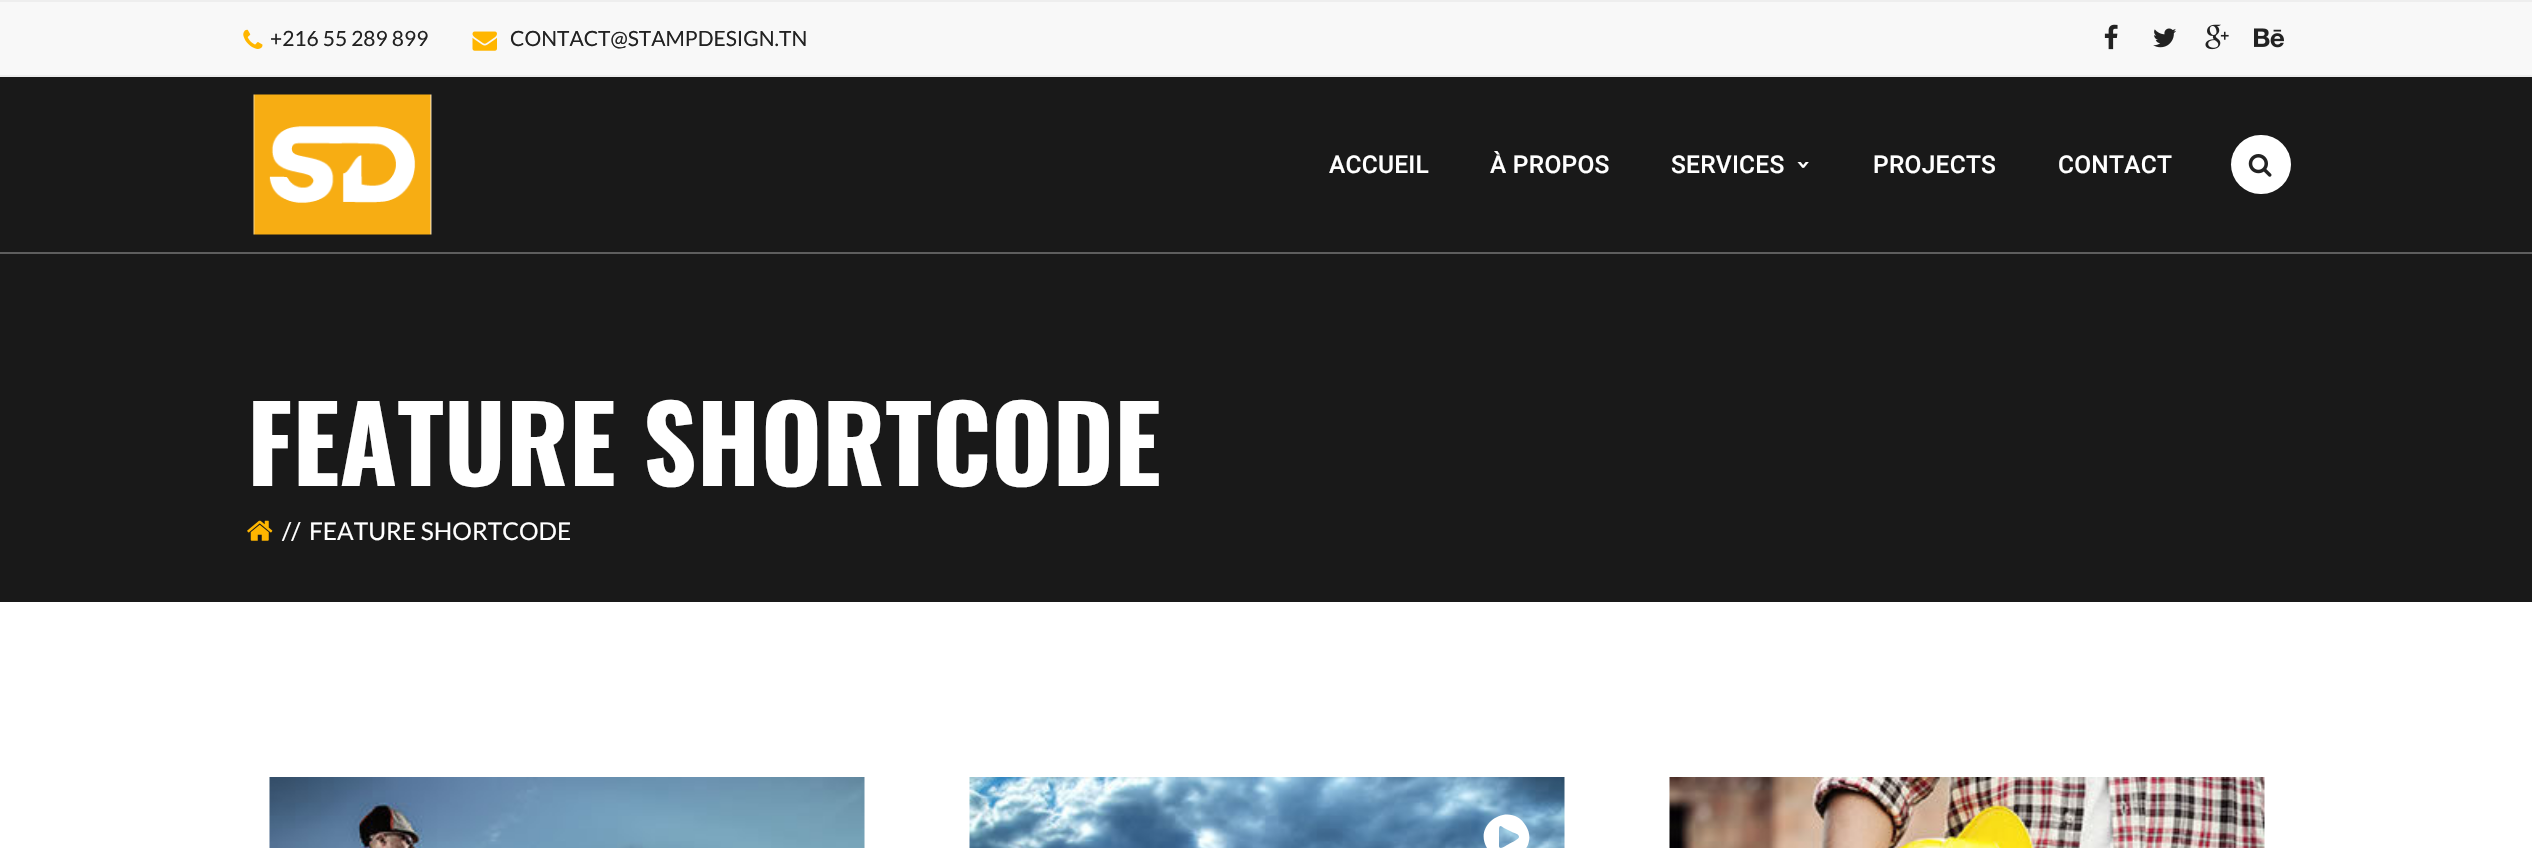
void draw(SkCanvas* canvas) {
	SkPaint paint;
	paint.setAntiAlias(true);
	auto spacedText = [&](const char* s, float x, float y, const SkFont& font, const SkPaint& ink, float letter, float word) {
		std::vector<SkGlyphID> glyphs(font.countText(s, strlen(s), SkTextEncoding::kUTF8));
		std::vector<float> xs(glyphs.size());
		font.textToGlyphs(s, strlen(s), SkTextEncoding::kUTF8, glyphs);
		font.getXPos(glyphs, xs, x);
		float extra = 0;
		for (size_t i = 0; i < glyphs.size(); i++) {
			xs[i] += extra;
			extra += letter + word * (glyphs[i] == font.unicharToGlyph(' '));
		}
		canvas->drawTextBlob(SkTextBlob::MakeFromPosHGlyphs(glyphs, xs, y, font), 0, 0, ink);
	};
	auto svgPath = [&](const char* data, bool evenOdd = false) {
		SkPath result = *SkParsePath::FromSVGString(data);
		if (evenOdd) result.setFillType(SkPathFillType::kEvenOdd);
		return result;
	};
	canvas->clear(0xffffffff);
	paint.setColor(0xfff8f8f8);
	canvas->drawRect(SkRect::MakeXYWH(0, 2, 2532, 73), paint);
	paint.setColor(0xffeeeeee);
	canvas->drawRect(SkRect::MakeXYWH(0, 0, 2532, 2), paint);
	canvas->drawRect(SkRect::MakeXYWH(0, 75, 2532, 2), paint);
	canvas->drawImageRect(SkImages::DeferredFromEncodedData(SkData::MakeFromFileName("img1.png")), SkRect::MakeXYWH(243, 29, 20, 20), SkSamplingOptions());
	SkFont f1(fontMgr->matchFamilyStyle("Lato", SkFontStyle::Normal()), 21);
	f1.setSubpixel(true);
	paint.setColor(0xff222222);
	canvas->drawString("+216 55 289 899", 270, 46, f1, paint);
	canvas->drawImageRect(SkImages::DeferredFromEncodedData(SkData::MakeFromFileName("img2.png")), SkRect::MakeXYWH(472, 31, 25, 20), SkSamplingOptions());
	canvas->drawString("CONTACT@STAMPDESIGN.TN", 510, 46, f1, paint);
	canvas->drawImageRect(SkImages::DeferredFromEncodedData(SkData::MakeFromFileName("img3.png")), SkRect::MakeXYWH(2104, 24, 14, 26), SkSamplingOptions());
	canvas->drawImageRect(SkImages::DeferredFromEncodedData(SkData::MakeFromFileName("img4.png")), SkRect::MakeXYWH(2153, 28, 24, 20), SkSamplingOptions());
	canvas->drawImageRect(SkImages::DeferredFromEncodedData(SkData::MakeFromFileName("img5.png")), SkRect::MakeXYWH(2205, 24, 24, 26), SkSamplingOptions());
	canvas->drawImageRect(SkImages::DeferredFromEncodedData(SkData::MakeFromFileName("img6.png")), SkRect::MakeXYWH(2254, 28, 30, 20), SkSamplingOptions());
	paint.setColor(0xff191919);
	canvas->drawRect(SkRect::MakeXYWH(0, 77, 2532, 525), paint);
	paint.setColor(0xff5e5e5e);
	canvas->drawRect(SkRect::MakeXYWH(0, 252, 2532, 2), paint);
	canvas->drawImageRect(SkImages::DeferredFromEncodedData(SkData::MakeFromFileName("img7.png")), SkRect::MakeXYWH(253, 94, 179, 141), SkSamplingOptions());
	SkFont f2(fontMgr->matchFamilyStyle("Roboto", SkFontStyle(500, SkFontStyle::kNormal_Width, SkFontStyle::kUpright_Slant)), 24.5);
	f2.setSubpixel(true);
	paint.setColor(0xffffffff);
	spacedText("ACCUEIL", 1329, 173, f2, paint, 0.25, 0);
	spacedText("À PROPOS", 1490, 173, f2, paint, 0.25, 0);
	spacedText("SERVICES", 1671, 173, f2, paint, 0.25, 0);
	SkFont f3(fontMgr->matchFamilyStyle("DejaVu Sans Mono", SkFontStyle::Bold()), 24.5);
	f3.setSubpixel(true);
	canvas->save();
	canvas->rotate(90, 1796, 157);
	spacedText("›", 1796, 157, f3, paint, 0.25, 0);
	canvas->restore();
	spacedText("PROJECTS", 1873, 173, f2, paint, 0.25, 0);
	spacedText("CONTACT", 2058, 173, f2, paint, 0.25, 0);
	canvas->drawRoundRect(SkRect::MakeXYWH(2231, 135, 60, 59), 29.5, 29.5, paint);
	canvas->drawImageRect(SkImages::DeferredFromEncodedData(SkData::MakeFromFileName("img8.png")), SkRect::MakeXYWH(2248, 154, 24, 23), SkSamplingOptions());
	SkFont f4(fontMgr->matchFamilyStyle("Oswald", SkFontStyle::Bold()), 105);
	f4.setSubpixel(true);
	canvas->drawString("FEATURE SHORTCODE", 247, 486, f4, paint);
	canvas->drawImageRect(SkImages::DeferredFromEncodedData(SkData::MakeFromFileName("img9.png")), SkRect::MakeXYWH(247, 520, 26, 21), SkSamplingOptions());
	SkFont f5(fontMgr->matchFamilyStyle("Lato", SkFontStyle::Normal()), 24.5);
	f5.setSubpixel(true);
	canvas->drawString("//", 282, 540, f5, paint);
	canvas->drawString("FEATURE SHORTCODE", 309, 540, f5, paint);
	canvas->drawImageRect(SkImages::DeferredFromEncodedData(SkData::MakeFromFileName("img10.png")), SkRect::MakeXYWH(269, 777, 596, 71), SkSamplingOptions());
	canvas->drawImageRect(SkImages::DeferredFromEncodedData(SkData::MakeFromFileName("img11.png")), SkRect::MakeXYWH(969, 777, 596, 71), SkSamplingOptions());
	canvas->drawPath(svgPath("M1487 848C1472 823 1511 800 1526 826C1541 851 1502 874 1487 848ZM1499 846C1499 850 1504 847 1507 845C1509 844 1519 839 1519 837C1519 834 1514 833 1512 832L1504 828C1500 825 1499 825 1499 831Z"), paint);
	canvas->drawImageRect(SkImages::DeferredFromEncodedData(SkData::MakeFromFileName("img12.png")), SkRect::MakeXYWH(1669, 777, 596, 71), SkSamplingOptions());
}
